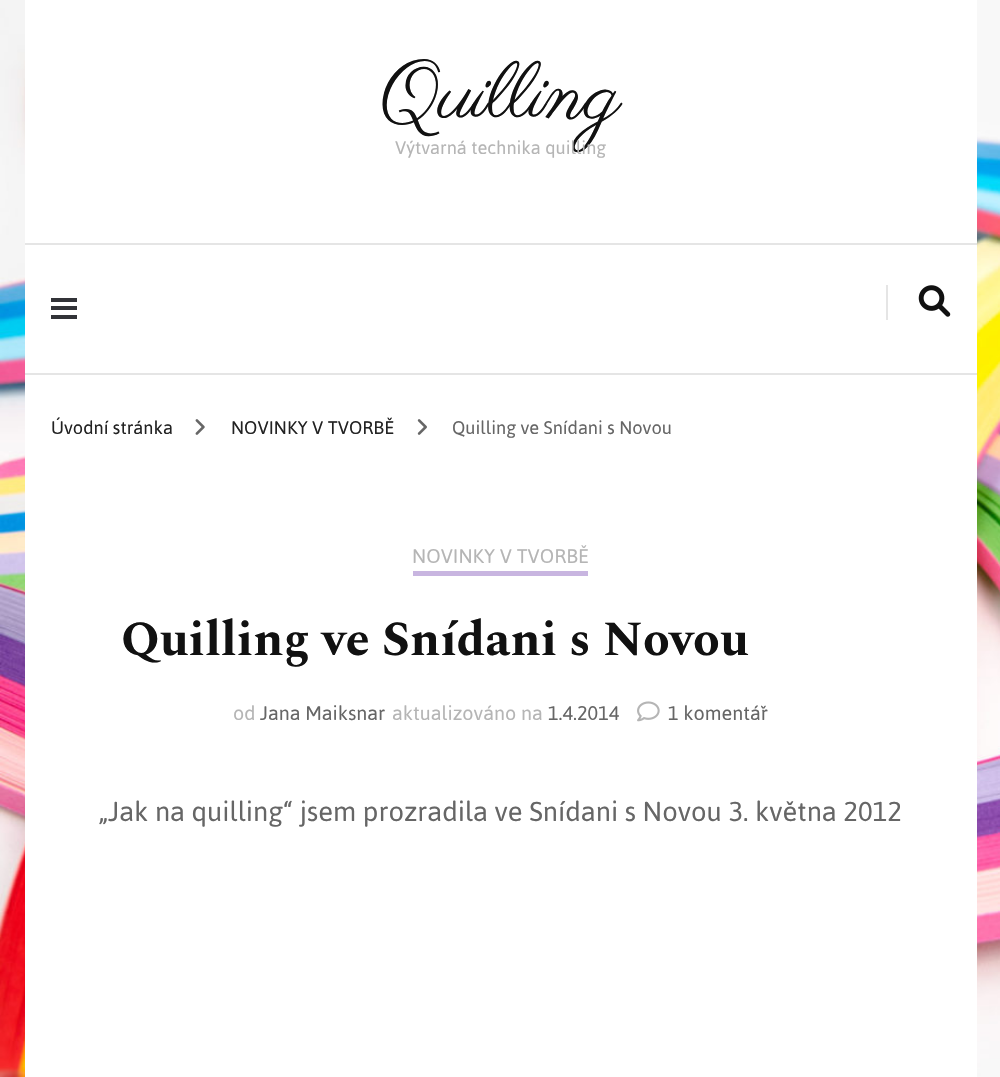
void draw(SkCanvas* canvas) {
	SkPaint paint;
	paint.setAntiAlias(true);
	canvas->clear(0xffffffff);
	canvas->drawImageRect(SkImages::DeferredFromEncodedData(SkData::MakeFromFileName("img1.png")), SkRect::MakeXYWH(0, 0, 1000, 1077), SkSamplingOptions());
	paint.setColor(0xffffffff);
	canvas->drawRect(SkRect::MakeXYWH(25, 0, 952, 1077), paint);
	SkFont f1(fontMgr->matchFamilyStyle("Parisienne", SkFontStyle::Normal()), 79);
	f1.setSubpixel(true);
	paint.setColor(0xff111111);
	canvas->drawString("Quilling", 381, 117, f1, paint);
	SkFont f2(fontMgr->matchFamilyStyle("Jaldi", SkFontStyle::Normal()), 21);
	f2.setSubpixel(true);
	paint.setColor(0xffb5b5b5);
	canvas->drawString("Výtvarná technika quilling", 395, 154, f2, paint);
	paint.setColor(0xffe5e5e5);
	canvas->drawRect(SkRect::MakeXYWH(25, 243, 952, 2), paint);
	canvas->drawRect(SkRect::MakeXYWH(25, 373, 952, 2), paint);
	paint.setColor(0xff323338);
	canvas->drawRect(SkRect::MakeXYWH(51, 306, 26, 4), paint);
	canvas->drawRect(SkRect::MakeXYWH(51, 298, 26, 4), paint);
	canvas->drawRect(SkRect::MakeXYWH(51, 315, 26, 4), paint);
	paint.setColor(0xffe5e5e5);
	canvas->drawRect(SkRect::MakeXYWH(886, 285, 2, 35), paint);
	canvas->drawImageRect(SkImages::DeferredFromEncodedData(SkData::MakeFromFileName("img2.png")), SkRect::MakeXYWH(918, 285, 33, 32), SkSamplingOptions());
	paint.setColor(0xff222222);
	canvas->drawString("Úvodní stránka", 51, 434, f2, paint);
	canvas->drawImageRect(SkImages::DeferredFromEncodedData(SkData::MakeFromFileName("img3.png")), SkRect::MakeXYWH(195, 419, 10, 16), SkSamplingOptions());
	canvas->drawString("NOVINKY V TVORBĚ", 231, 434, f2, paint);
	canvas->drawImageRect(SkImages::DeferredFromEncodedData(SkData::MakeFromFileName("img4.png")), SkRect::MakeXYWH(417, 419, 10, 16), SkSamplingOptions());
	paint.setColor(0xff666666);
	canvas->drawString("Quilling ve Snídani s Novou", 452, 434, f2, paint);
	paint.setColor(0xffc8b5e0);
	canvas->drawRect(SkRect::MakeXYWH(413, 571, 175, 5), paint);
	SkFont f3(fontMgr->matchFamilyStyle("Jaldi", SkFontStyle::Normal()), 22.75);
	f3.setSubpixel(true);
	paint.setColor(0xffb5b5b5);
	canvas->drawString("NOVINKY V TVORBĚ", 412, 563, f3, paint);
	SkFont f4(fontMgr->matchFamilyStyle("Spectral SC", SkFontStyle::Bold()), 49);
	f4.setSubpixel(true);
	paint.setColor(0xff111111);
	canvas->drawString("Quilling ve Snídani s Novou", 121, 655, f4, paint);
	paint.setColor(0xffb5b5b5);
	canvas->drawString("od", 233, 720, f3, paint);
	paint.setColor(0xff666666);
	canvas->drawString("Jana Maiksnar", 260, 720, f3, paint);
	paint.setColor(0xffb5b5b5);
	canvas->drawString("aktualizováno na", 392, 720, f3, paint);
	paint.setColor(0xff666666);
	canvas->drawString("1.4.2014", 548, 720, f3, paint);
	canvas->drawImageRect(SkImages::DeferredFromEncodedData(SkData::MakeFromFileName("img5.png")), SkRect::MakeXYWH(637, 701, 23, 21), SkSamplingOptions());
	canvas->drawString("1 komentář", 668, 720, f3, paint);
	SkFont f5(fontMgr->matchFamilyStyle("Jaldi", SkFontStyle::Normal()), 31.5);
	f5.setSubpixel(true);
	canvas->drawString("„Jak na quilling“ jsem prozradila ve Snídani s Novou 3. května 2012", 99, 821, f5, paint);
}
